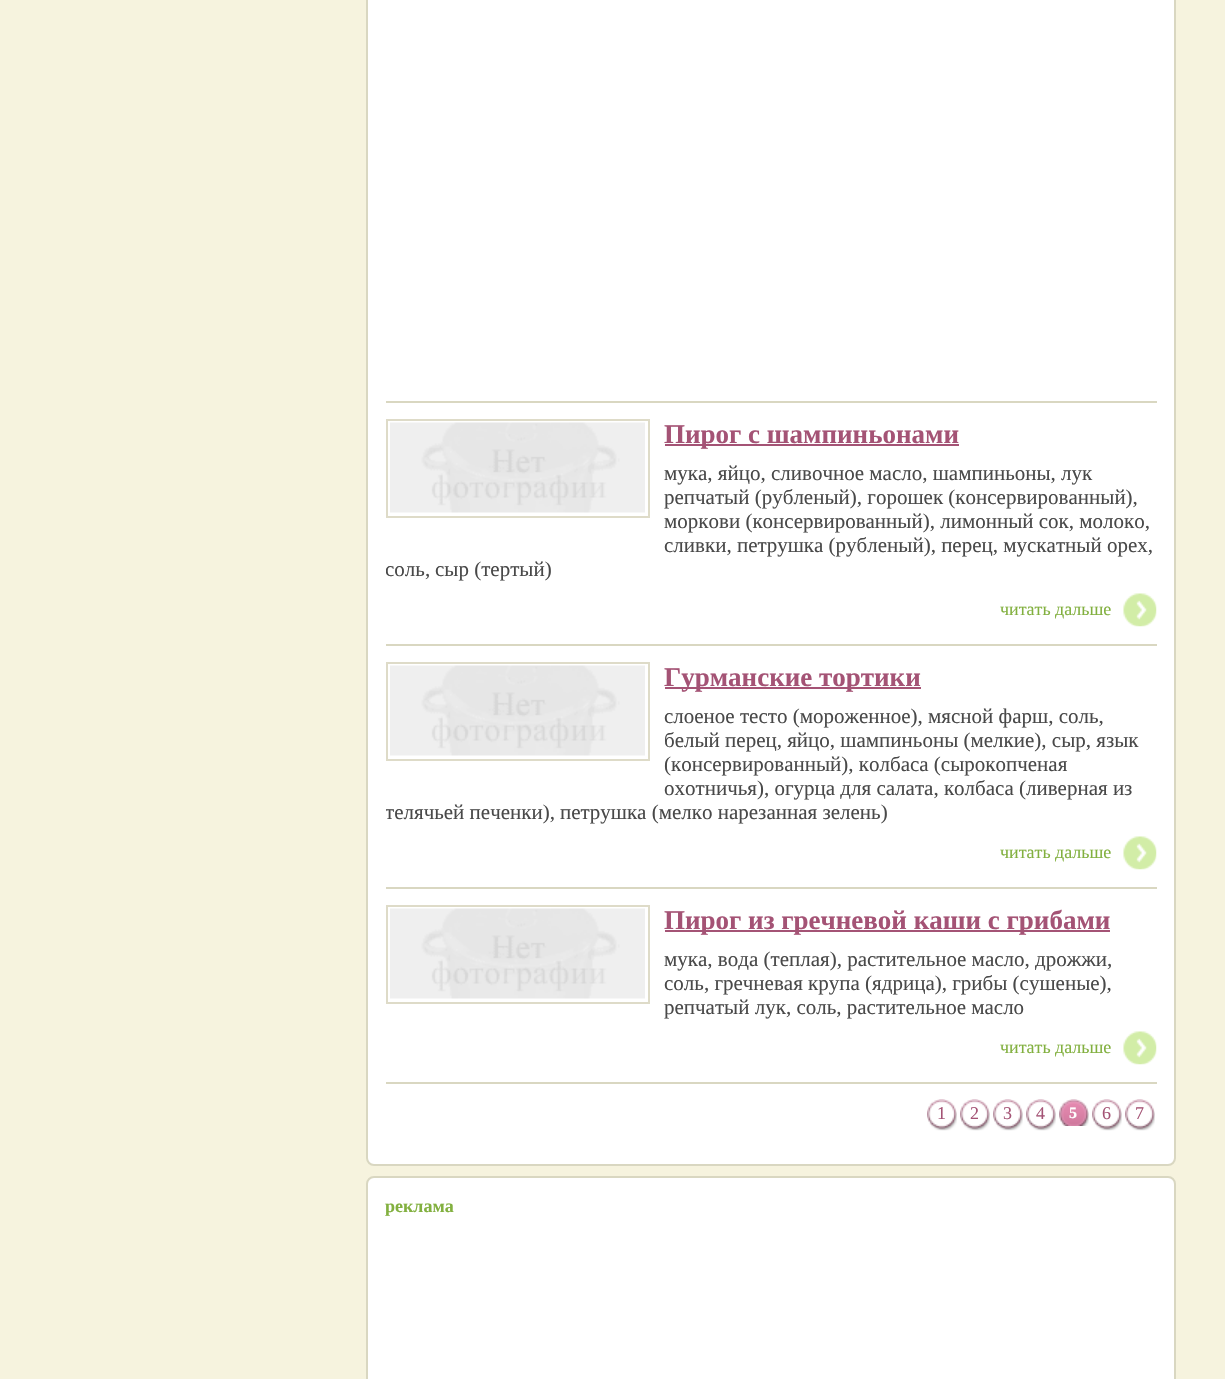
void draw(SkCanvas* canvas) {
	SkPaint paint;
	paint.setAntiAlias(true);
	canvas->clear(0xfff6f3de);
	paint.setColor(0xffffffff);
	canvas->drawRoundRect(SkRect::MakeXYWH(367, -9, 808, 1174), 7, 7, paint);
	paint.setStroke(true);
	paint.setStrokeWidth(2);
	paint.setColor(0xffd9d7c1);
	canvas->drawRoundRect(SkRect::MakeXYWH(367, -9, 808, 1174), 7, 7, paint);
	paint.setStroke(false);
	canvas->drawRect(SkRect::MakeXYWH(386, 401, 771, 2), paint);
	paint.setStroke(true);
	paint.setColor(0xffdedbc8);
	canvas->drawRect(SkRect::MakeXYWH(387, 420, 262, 97), paint);
	canvas->drawImageRect(SkImages::DeferredFromEncodedData(SkData::MakeFromFileName("img1.png")), SkRect::MakeXYWH(390, 422, 255, 91), SkSamplingOptions());
	paint.setStroke(false);
	paint.setColor(0xffa45375);
	canvas->drawRect(SkRect::MakeXYWH(665, 444, 294, 2), paint);
	SkFont f1(fontMgr->matchFamilyStyle("Liberation Serif", SkFontStyle::Bold()), 27);
	f1.setSubpixel(true);
	canvas->drawString("Пирог с шампиньонами", 664, 443, f1, paint);
	SkFont f2(fontMgr->matchFamilyStyle("Liberation Serif", SkFontStyle::Normal()), 21);
	f2.setSubpixel(true);
	paint.setColor(0xff494949);
	canvas->drawString("мука, яйцо, сливочное масло, шампиньоны, лук", 664, 480, f2, paint);
	canvas->drawString("репчатый (рубленый), горошек (консервированный),", 664, 504, f2, paint);
	canvas->drawString("моркови (консервированный), лимонный сок, молоко,", 664, 528, f2, paint);
	canvas->drawString("сливки, петрушка (рубленый), перец, мускатный орех,", 664, 552, f2, paint);
	canvas->save();
	canvas->clipRect(SkRect::MakeXYWH(386, 419, 771, 208));
	canvas->drawString("соль,", 385, 576, f2, paint);
	canvas->restore();
	canvas->drawString("сыр (тертый)", 435, 576, f2, paint);
	SkFont f3(fontMgr->matchFamilyStyle("Liberation Serif", SkFontStyle::Normal()), 18);
	f3.setSubpixel(true);
	paint.setColor(0xff82b03f);
	canvas->drawString("читать дальше", 1000, 615, f3, paint);
	canvas->drawImageRect(SkImages::DeferredFromEncodedData(SkData::MakeFromFileName("img2.png")), SkRect::MakeXYWH(1123, 593, 34, 34), SkSamplingOptions());
	paint.setColor(0xffd9d7c1);
	canvas->drawRect(SkRect::MakeXYWH(386, 644, 771, 2), paint);
	paint.setStroke(true);
	paint.setColor(0xffdedbc8);
	canvas->drawRect(SkRect::MakeXYWH(387, 663, 262, 97), paint);
	canvas->drawImageRect(SkImages::DeferredFromEncodedData(SkData::MakeFromFileName("img1.png")), SkRect::MakeXYWH(390, 665, 255, 91), SkSamplingOptions());
	paint.setStroke(false);
	paint.setColor(0xffa45375);
	canvas->drawRect(SkRect::MakeXYWH(665, 687, 256, 2), paint);
	canvas->drawString("Гурманские тортики", 664, 686, f1, paint);
	paint.setColor(0xff494949);
	canvas->drawString("слоеное тесто (мороженное), мясной фарш, соль,", 664, 723, f2, paint);
	canvas->drawString("белый перец, яйцо, шампиньоны (мелкие), сыр, язык", 664, 747, f2, paint);
	canvas->drawString("(консервированный), колбаса (сырокопченая", 664, 771, f2, paint);
	canvas->drawString("охотничья), огурца для салата, колбаса (ливерная из", 664, 795, f2, paint);
	canvas->save();
	canvas->clipRect(SkRect::MakeXYWH(386, 662, 771, 208));
	canvas->drawString("телячьей печенки),", 385, 819, f2, paint);
	canvas->restore();
	canvas->drawString("петрушка (мелко нарезанная зелень)", 560, 819, f2, paint);
	paint.setColor(0xff82b03f);
	canvas->drawString("читать дальше", 1000, 858, f3, paint);
	canvas->drawImageRect(SkImages::DeferredFromEncodedData(SkData::MakeFromFileName("img2.png")), SkRect::MakeXYWH(1123, 836, 34, 34), SkSamplingOptions());
	paint.setColor(0xffd9d7c1);
	canvas->drawRect(SkRect::MakeXYWH(386, 887, 771, 2), paint);
	paint.setStroke(true);
	paint.setColor(0xffdedbc8);
	canvas->drawRect(SkRect::MakeXYWH(387, 906, 262, 97), paint);
	canvas->drawImageRect(SkImages::DeferredFromEncodedData(SkData::MakeFromFileName("img1.png")), SkRect::MakeXYWH(390, 908, 255, 91), SkSamplingOptions());
	paint.setStroke(false);
	paint.setColor(0xffa45375);
	canvas->drawRect(SkRect::MakeXYWH(665, 930, 445, 2), paint);
	canvas->drawString("Пирог из гречневой каши с грибами", 664, 929, f1, paint);
	paint.setColor(0xff494949);
	canvas->drawString("мука, вода (теплая), растительное масло, дрожжи,", 664, 966, f2, paint);
	canvas->drawString("соль, гречневая крупа (ядрица), грибы (сушеные),", 664, 990, f2, paint);
	canvas->drawString("репчатый лук, соль, растительное масло", 664, 1014, f2, paint);
	paint.setColor(0xff82b03f);
	canvas->drawString("читать дальше", 1000, 1053, f3, paint);
	canvas->drawImageRect(SkImages::DeferredFromEncodedData(SkData::MakeFromFileName("img2.png")), SkRect::MakeXYWH(1123, 1031, 34, 34), SkSamplingOptions());
	paint.setColor(0xffd9d7c1);
	canvas->drawRect(SkRect::MakeXYWH(386, 1082, 771, 2), paint);
	canvas->drawImageRect(SkImages::DeferredFromEncodedData(SkData::MakeFromFileName("img3.png")), SkRect::MakeXYWH(927, 1099, 30, 32), SkSamplingOptions());
	paint.setColor(0xffa45375);
	canvas->drawString("1", 937, 1119, f3, paint);
	canvas->drawImageRect(SkImages::DeferredFromEncodedData(SkData::MakeFromFileName("img3.png")), SkRect::MakeXYWH(960, 1099, 30, 32), SkSamplingOptions());
	canvas->drawString("2", 970, 1119, f3, paint);
	canvas->drawImageRect(SkImages::DeferredFromEncodedData(SkData::MakeFromFileName("img3.png")), SkRect::MakeXYWH(993, 1099, 30, 32), SkSamplingOptions());
	canvas->drawString("3", 1003, 1119, f3, paint);
	canvas->drawImageRect(SkImages::DeferredFromEncodedData(SkData::MakeFromFileName("img4.png")), SkRect::MakeXYWH(1026, 1099, 30, 32), SkSamplingOptions());
	canvas->drawString("4", 1036, 1119, f3, paint);
	canvas->drawImageRect(SkImages::DeferredFromEncodedData(SkData::MakeFromFileName("img5.png")), SkRect::MakeXYWH(1059, 1099, 30, 27), SkSamplingOptions());
	SkFont f4(fontMgr->matchFamilyStyle("Liberation Serif", SkFontStyle::Bold()), 16);
	f4.setSubpixel(true);
	paint.setColor(0xffffffff);
	canvas->drawString("5", 1069, 1118, f4, paint);
	canvas->drawImageRect(SkImages::DeferredFromEncodedData(SkData::MakeFromFileName("img6.png")), SkRect::MakeXYWH(1092, 1099, 30, 32), SkSamplingOptions());
	paint.setColor(0xffa45375);
	canvas->drawString("6", 1102, 1119, f3, paint);
	canvas->drawImageRect(SkImages::DeferredFromEncodedData(SkData::MakeFromFileName("img6.png")), SkRect::MakeXYWH(1125, 1099, 30, 32), SkSamplingOptions());
	canvas->drawString("7", 1135, 1119, f3, paint);
	paint.setColor(0xffffffff);
	canvas->drawRoundRect(SkRect::MakeXYWH(367, 1177, 808, 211), 7, 7, paint);
	paint.setStroke(true);
	paint.setColor(0xffd9d7c1);
	canvas->drawRoundRect(SkRect::MakeXYWH(367, 1177, 808, 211), 7, 7, paint);
	SkFont f5(fontMgr->matchFamilyStyle("Liberation Serif", SkFontStyle::Bold()), 18);
	f5.setSubpixel(true);
	paint.setStroke(false);
	paint.setColor(0xff82b03f);
	canvas->drawString("реклама", 385, 1212, f5, paint);
}
